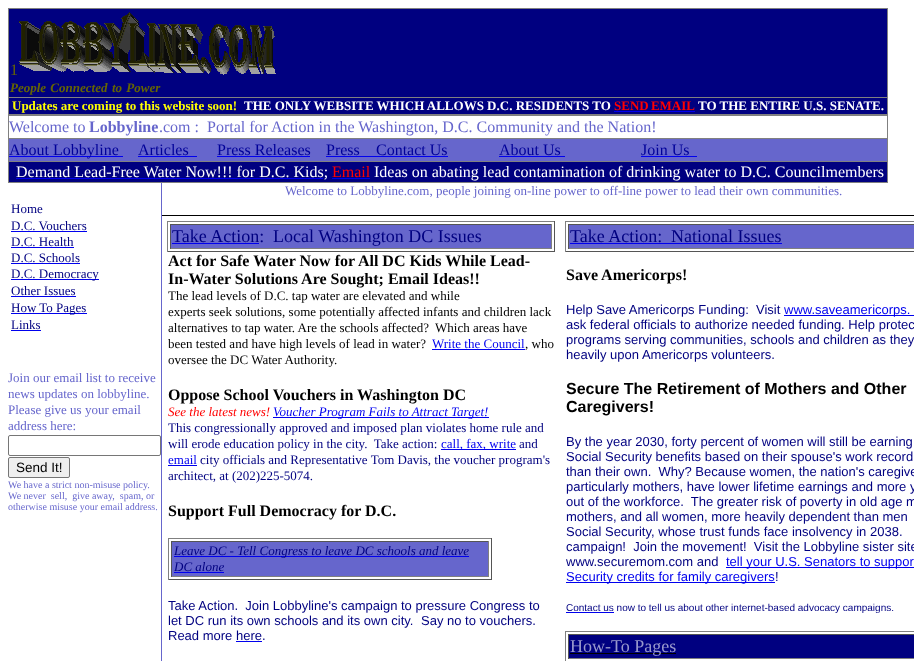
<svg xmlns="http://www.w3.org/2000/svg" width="914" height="661">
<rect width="100%" height="100%" fill="#fff"/>
<rect x="8" y="8" width="880" height="1" fill="#808080"/>
<rect x="887" y="8" width="1" height="107" fill="#808080"/>
<rect x="8" y="114" width="880" height="2" fill="#808080"/>
<rect x="8" y="8" width="1" height="107" fill="#808080"/>
<rect x="9" y="9" width="878" height="88" fill="#000080"/>
<text x="10" y="75" style="font-family:Liberation Serif;font-size:16px;fill:#660">1</text>
<image x="19" y="12" width="257" height="63" href="media/1.png"/>
<text x="10" y="92" word-spacing="1" style="font-family:Liberation Serif;font-size:13px;font-weight:bold;font-style:italic;fill:#660">People Connected</text>
<text x="112" y="92" word-spacing="1" style="font-family:Liberation Serif;font-size:13px;font-weight:bold;font-style:italic;fill:#660">to Power</text>
<rect x="9" y="98" width="878" height="16" fill="#000080"/>
<rect x="8" y="97" width="880" height="1" fill="#808080"/>
<text x="12" y="110" style="font-family:Liberation Serif;font-size:13px;font-weight:bold;fill:#ff0">Updates are coming to this website soon!</text>
<text x="244" y="110" style="font-family:Liberation Serif;font-size:13px;font-weight:bold;fill:#fff">THE ONLY WEBSITE WHICH ALLOWS D.C. RESIDENTS TO</text>
<text x="614" y="110" word-spacing="-1" style="font-family:Liberation Serif;font-size:13px;font-weight:bold;fill:#f00">SEND EMAIL</text>
<rect x="614" y="111" width="81" height="1" fill="#00e"/>
<text x="698" y="110" style="font-family:Liberation Serif;font-size:13px;font-weight:bold;fill:#fff">TO THE ENTIRE U.S. SENATE.</text>
<rect x="887" y="115" width="1" height="68" fill="#808080"/>
<rect x="8" y="182" width="880" height="1" fill="#808080"/>
<rect x="8" y="115" width="1" height="68" fill="#808080"/>
<text x="9" y="132" style="font-family:Liberation Serif;font-size:16px;fill:#66c">Welcome to</text>
<text x="89" y="132" style="font-family:Liberation Serif;font-size:16px;font-weight:bold;fill:#66c">Lobbyline</text>
<text x="159" y="132" style="font-family:Liberation Serif;font-size:16px;fill:#66c">.com :</text>
<text x="207" y="132" style="font-family:Liberation Serif;font-size:16px;fill:#66c">Portal for Action in the Washington, D.C. Community and the Nation!</text>
<rect x="9" y="139" width="878" height="22" fill="#66c"/>
<rect x="8" y="138" width="880" height="1" fill="#808080"/>
<rect x="9" y="156" width="114" height="1" fill="#00e"/>
<text x="9" y="155" style="font-family:Liberation Serif;font-size:16px;fill:#009">About Lobbyline</text>
<text x="138" y="155" style="font-family:Liberation Serif;font-size:16px;fill:#009">Articles</text>
<rect x="138" y="156" width="59" height="1" fill="#00e"/>
<text x="217" y="155" style="font-family:Liberation Serif;font-size:16px;fill:#009">Press Releases</text>
<rect x="217" y="156" width="93" height="1" fill="#00e"/>
<text x="326" y="155" style="font-family:Liberation Serif;font-size:16px;fill:#009">Press</text>
<rect x="326" y="156" width="122" height="1" fill="#00e"/>
<text x="376" y="155" style="font-family:Liberation Serif;font-size:16px;fill:#009">Contact Us</text>
<text x="499" y="155" style="font-family:Liberation Serif;font-size:16px;fill:#009">About Us</text>
<rect x="499" y="156" width="66" height="1" fill="#00e"/>
<text x="641" y="155" style="font-family:Liberation Serif;font-size:16px;fill:#009">Join Us</text>
<rect x="641" y="156" width="56" height="1" fill="#00e"/>
<rect x="9" y="162" width="878" height="20" fill="#000080"/>
<rect x="8" y="161" width="880" height="1" fill="#808080"/>
<rect x="16" y="178" width="307" height="1" fill="#00e"/>
<text x="16" y="177" style="font-family:Liberation Serif;font-size:16px;fill:#fff">Demand Lead-Free Water Now!!! for D.C. Kids;</text>
<text x="332" y="177" style="font-family:Liberation Serif;font-size:16px;fill:#f00">Email</text>
<rect x="332" y="178" width="38" height="1" fill="#00e"/>
<text x="374" y="177" style="font-family:Liberation Serif;font-size:16px;fill:#fff">Ideas on abating lead contamination of drinking water to D.C. Councilmembers</text>
<rect x="161" y="183" width="1" height="478" fill="#66c"/>
<text x="11" y="213" style="font-family:Liberation Serif;font-size:13px;fill:#000080">Home</text>
<text x="11" y="230" style="font-family:Liberation Serif;font-size:13px;fill:#000080">D.C. Vouchers</text>
<rect x="11" y="231" width="76" height="1" fill="#00e"/>
<text x="11" y="246" style="font-family:Liberation Serif;font-size:13px;fill:#000080">D.C. Health</text>
<rect x="11" y="247" width="63" height="1" fill="#00e"/>
<text x="11" y="262" style="font-family:Liberation Serif;font-size:13px;fill:#000080">D.C. Schools</text>
<rect x="11" y="263" width="69" height="1" fill="#00e"/>
<rect x="11" y="279" width="88" height="1" fill="#00e"/>
<text x="11" y="278" style="font-family:Liberation Serif;font-size:13px;fill:#000080">D.C. Democracy</text>
<text x="11" y="295" style="font-family:Liberation Serif;font-size:13px;fill:#000080">Other Issues</text>
<rect x="11" y="296" width="65" height="1" fill="#00e"/>
<rect x="11" y="313" width="76" height="1" fill="#00e"/>
<text x="11" y="312" style="font-family:Liberation Serif;font-size:13px;fill:#000080">How To Pages</text>
<text x="11" y="329" style="font-family:Liberation Serif;font-size:13px;fill:#000080">Links</text>
<rect x="11" y="330" width="30" height="1" fill="#00e"/>
<text x="8" y="382" style="font-family:Liberation Serif;font-size:13px;fill:#66c">Join our email list to receive</text>
<text x="8" y="398" style="font-family:Liberation Serif;font-size:13px;fill:#66c">news updates on lobbyline.</text>
<text x="8" y="414" style="font-family:Liberation Serif;font-size:13px;fill:#66c">Please give us your email</text>
<text x="8" y="430" style="font-family:Liberation Serif;font-size:13px;fill:#66c">address here:</text>
<rect x="8.5" y="435.5" width="152" height="20" rx="1.5" fill="none" stroke="#767676"/>
<rect x="8.5" y="457.5" width="61" height="20" rx="1.5" fill="#efefef" stroke="#767676"/>
<text x="16" y="472" style="font-family:Liberation Sans;font-size:13.5px;fill:#000">Send It!</text>
<text x="8" y="488" style="font-family:Liberation Serif;font-size:10px;fill:#66c">We have a strict non-misuse policy.</text>
<text x="8" y="499" style="font-family:Liberation Serif;font-size:10px;fill:#66c" xml:space="preserve">We never  sell,  give away,  spam, or</text>
<text x="8" y="510" style="font-family:Liberation Serif;font-size:10px;fill:#66c">otherwise misuse your email address.</text>
<text x="285" y="195" style="font-family:Liberation Serif;font-size:13px;fill:#66c">Welcome to Lobbyline.com, people joining on-line power to off-line power to lead their own communities.</text>
<rect x="162" y="215" width="752" height="1" fill="#000"/>
<rect x="167" y="221" width="388" height="1" fill="#808080"/>
<rect x="554" y="221" width="1" height="31" fill="#555"/>
<rect x="167" y="251" width="388" height="1" fill="#555"/>
<rect x="167" y="221" width="1" height="31" fill="#808080"/>
<rect x="171" y="225" width="380" height="23" fill="#66c"/>
<rect x="170" y="224" width="382" height="1" fill="#555"/>
<rect x="551" y="224" width="1" height="25" fill="#808080"/>
<rect x="170" y="248" width="382" height="1" fill="#808080"/>
<rect x="170" y="224" width="1" height="25" fill="#555"/>
<text x="172" y="242" style="font-family:Liberation Serif;font-size:18px;fill:#000080">Take Action:</text>
<rect x="172" y="243" width="87" height="1" fill="#00e"/>
<text x="273" y="242" style="font-family:Liberation Serif;font-size:18px;fill:#000080">Local Washington DC Issues</text>
<text x="168" y="266" style="font-family:Liberation Serif;font-size:16px;font-weight:bold;fill:#000">Act for Safe Water Now for All DC Kids While Lead-</text>
<text x="168" y="284" style="font-family:Liberation Serif;font-size:16px;font-weight:bold;fill:#000">In-Water Solutions Are Sought; Email Ideas!!</text>
<text x="168" y="300" style="font-family:Liberation Serif;font-size:13px;fill:#000">The lead levels of D.C. tap water are elevated and while</text>
<text x="168" y="316" style="font-family:Liberation Serif;font-size:13px;fill:#000">experts seek solutions, some potentially affected infants and children lack</text>
<text x="168" y="332" style="font-family:Liberation Serif;font-size:13px;fill:#000">alternatives to tap water. Are the schools affected?</text>
<text x="435" y="332" style="font-family:Liberation Serif;font-size:13px;fill:#000">Which areas have</text>
<text x="168" y="348" style="font-family:Liberation Serif;font-size:13px;fill:#000">been tested and have high levels of lead in water?</text>
<text x="432" y="348" style="font-family:Liberation Serif;font-size:13px;fill:#00e">Write the Council</text>
<text x="525" y="348" style="font-family:Liberation Serif;font-size:13px;fill:#000">, who</text>
<rect x="432" y="349" width="93" height="1" fill="#00e"/>
<text x="168" y="364" style="font-family:Liberation Serif;font-size:13px;fill:#000">oversee the DC Water Authority.</text>
<text x="168" y="400" style="font-family:Liberation Serif;font-size:16px;font-weight:bold;fill:#000">Oppose School Vouchers in Washington DC</text>
<text x="168" y="416" style="font-family:Liberation Serif;font-size:13px;font-style:italic;fill:#f00">See the latest news!</text>
<rect x="273" y="417" width="216" height="1" fill="#00e"/>
<text x="273" y="416" style="font-family:Liberation Serif;font-size:13px;font-style:italic;fill:#00e">Voucher Program Fails to Attract Target!</text>
<text x="168" y="432" style="font-family:Liberation Serif;font-size:13px;fill:#000080">This congressionally approved and imposed plan violates home rule and</text>
<text x="168" y="448" style="font-family:Liberation Serif;font-size:13px;fill:#000080" xml:space="preserve">will erode education policy in the city.  Take action:</text>
<rect x="441" y="449" width="75" height="1" fill="#00e"/>
<text x="441" y="448" style="font-family:Liberation Serif;font-size:13px;fill:#00e">call, fax, write</text>
<text x="519" y="448" style="font-family:Liberation Serif;font-size:13px;fill:#000080">and</text>
<text x="168" y="464" style="font-family:Liberation Serif;font-size:13px;fill:#00e">email</text>
<rect x="168" y="465" width="29" height="1" fill="#00e"/>
<text x="200" y="464" style="font-family:Liberation Serif;font-size:13px;fill:#000080">city officials and Representative Tom Davis, the voucher program's</text>
<text x="168" y="480" style="font-family:Liberation Serif;font-size:13px;fill:#000080">architect, at (202)225-5074.</text>
<text x="168" y="516" style="font-family:Liberation Serif;font-size:16px;font-weight:bold;fill:#000">Support Full Democracy for D.C.</text>
<rect x="168" y="538" width="324" height="1" fill="#808080"/>
<rect x="491" y="538" width="1" height="42" fill="#555"/>
<rect x="168" y="579" width="324" height="1" fill="#555"/>
<rect x="168" y="538" width="1" height="42" fill="#808080"/>
<rect x="172" y="542" width="316" height="34" fill="#66c"/>
<rect x="171" y="541" width="318" height="1" fill="#555"/>
<rect x="488" y="541" width="1" height="36" fill="#808080"/>
<rect x="171" y="576" width="318" height="1" fill="#808080"/>
<rect x="171" y="541" width="1" height="36" fill="#555"/>
<rect x="174" y="556" width="295" height="1" fill="#00e"/>
<text x="174" y="555" style="font-family:Liberation Serif;font-size:13px;font-style:italic;fill:#000080">Leave DC - Tell Congress to leave DC schools and leave</text>
<text x="174" y="571" style="font-family:Liberation Serif;font-size:13px;font-style:italic;fill:#000080">DC alone</text>
<rect x="174" y="572" width="50" height="1" fill="#00e"/>
<text x="168" y="610" style="font-family:Liberation Sans;font-size:13px;fill:#000080" xml:space="preserve">Take Action.  Join Lobbyline's campaign to pressure Congress to</text>
<text x="168" y="625" style="font-family:Liberation Sans;font-size:13px;fill:#000080">let DC run its own schools and its own city.</text>
<text x="421" y="625" style="font-family:Liberation Sans;font-size:13px;fill:#000080">Say no to vouchers.</text>
<text x="168" y="640" style="font-family:Liberation Sans;font-size:13px;fill:#000080">Read more here.</text>
<rect x="236" y="641" width="26" height="1" fill="#00e"/>
<rect x="565" y="221" width="349" height="1" fill="#808080"/>
<rect x="565" y="251" width="349" height="1" fill="#555"/>
<rect x="565" y="221" width="1" height="31" fill="#808080"/>
<rect x="569" y="225" width="345" height="23" fill="#66c"/>
<rect x="568" y="224" width="346" height="1" fill="#555"/>
<rect x="568" y="248" width="346" height="1" fill="#808080"/>
<rect x="568" y="224" width="1" height="25" fill="#555"/>
<text x="570" y="242" style="font-family:Liberation Serif;font-size:18px;fill:#000080">Take Action:</text>
<rect x="570" y="243" width="212" height="1" fill="#00e"/>
<text x="671" y="242" style="font-family:Liberation Serif;font-size:18px;fill:#000080">National Issues</text>
<text x="566" y="280" style="font-family:Liberation Serif;font-size:16px;font-weight:bold;fill:#000">Save Americorps!</text>
<text x="566" y="314" style="font-family:Liberation Sans;font-size:13px;fill:#000080" xml:space="preserve">Help Save Americorps Funding:  Visit</text>
<rect x="784" y="315" width="130" height="1" fill="#00e"/>
<text x="784" y="314" style="font-family:Liberation Sans;font-size:13px;fill:#00e">www.saveamericorps.</text>
<text x="566" y="329" style="font-family:Liberation Sans;font-size:13px;fill:#000080">ask federal officials to authorize needed funding. Help protec</text>
<text x="566" y="344" style="font-family:Liberation Sans;font-size:13px;fill:#000080">programs serving communities, schools and children as they</text>
<text x="566" y="359" style="font-family:Liberation Sans;font-size:13px;fill:#000080">heavily upon Americorps volunteers.</text>
<text x="566" y="394" style="font-family:Liberation Sans;font-size:16px;font-weight:bold;fill:#000">Secure The Retirement of Mothers and Other</text>
<text x="566" y="412" style="font-family:Liberation Sans;font-size:16px;font-weight:bold;fill:#000">Caregivers!</text>
<text x="566" y="446" style="font-family:Liberation Sans;font-size:13px;fill:#000080">By the year 2030, forty percent of women will still be earning</text>
<text x="566" y="461" style="font-family:Liberation Sans;font-size:13px;fill:#000080">Social Security benefits based on their spouse's work record</text>
<text x="566" y="476" style="font-family:Liberation Sans;font-size:13px;fill:#000080" xml:space="preserve">than their own.  Why? Because women, the nation's caregive</text>
<text x="566" y="491" style="font-family:Liberation Sans;font-size:13px;fill:#000080">particularly mothers, have lower lifetime earnings and more y</text>
<text x="566" y="506" style="font-family:Liberation Sans;font-size:13px;fill:#000080" xml:space="preserve">out of the workforce.  The greater risk of poverty in old age m</text>
<text x="566" y="521" style="font-family:Liberation Sans;font-size:13px;fill:#000080">mothers, and all women, more heavily dependent than men</text>
<text x="566" y="536" style="font-family:Liberation Sans;font-size:13px;fill:#000080">Social Security, whose trust funds face insolvency in 2038.</text>
<text x="566" y="551" style="font-family:Liberation Sans;font-size:13px;fill:#000080" xml:space="preserve">campaign!  Join the movement!  Visit the Lobbyline sister site</text>
<text x="566" y="566" style="font-family:Liberation Sans;font-size:13px;fill:#000080">www.securemom.com and</text>
<rect x="726" y="567" width="188" height="1" fill="#00e"/>
<text x="726" y="566" style="font-family:Liberation Sans;font-size:13px;fill:#00e">tell your U.S. Senators to suppor</text>
<rect x="566" y="582" width="209" height="1" fill="#00e"/>
<text x="566" y="581" style="font-family:Liberation Sans;font-size:13px;fill:#00e">Security credits for family caregivers</text>
<text x="775" y="581" style="font-family:Liberation Sans;font-size:13px;fill:#000080">!</text>
<rect x="566" y="612" width="48" height="1" fill="#00e"/>
<text x="566" y="611" style="font-family:Liberation Sans;font-size:10px;fill:#000080">Contact us now to tell us about other internet-based advocacy campaigns.</text>
<rect x="565" y="631" width="349" height="1" fill="#808080"/>
<rect x="565" y="631" width="1" height="30" fill="#808080"/>
<rect x="569" y="635" width="345" height="23" fill="#000080"/>
<rect x="568" y="634" width="346" height="1" fill="#555"/>
<rect x="568" y="658" width="346" height="1" fill="#808080"/>
<rect x="568" y="634" width="1" height="25" fill="#555"/>
<rect x="570" y="653" width="106" height="1" fill="#000"/>
<text x="570" y="652" style="font-family:Liberation Serif;font-size:18px;fill:#99c">How-To Pages</text>
</svg>
